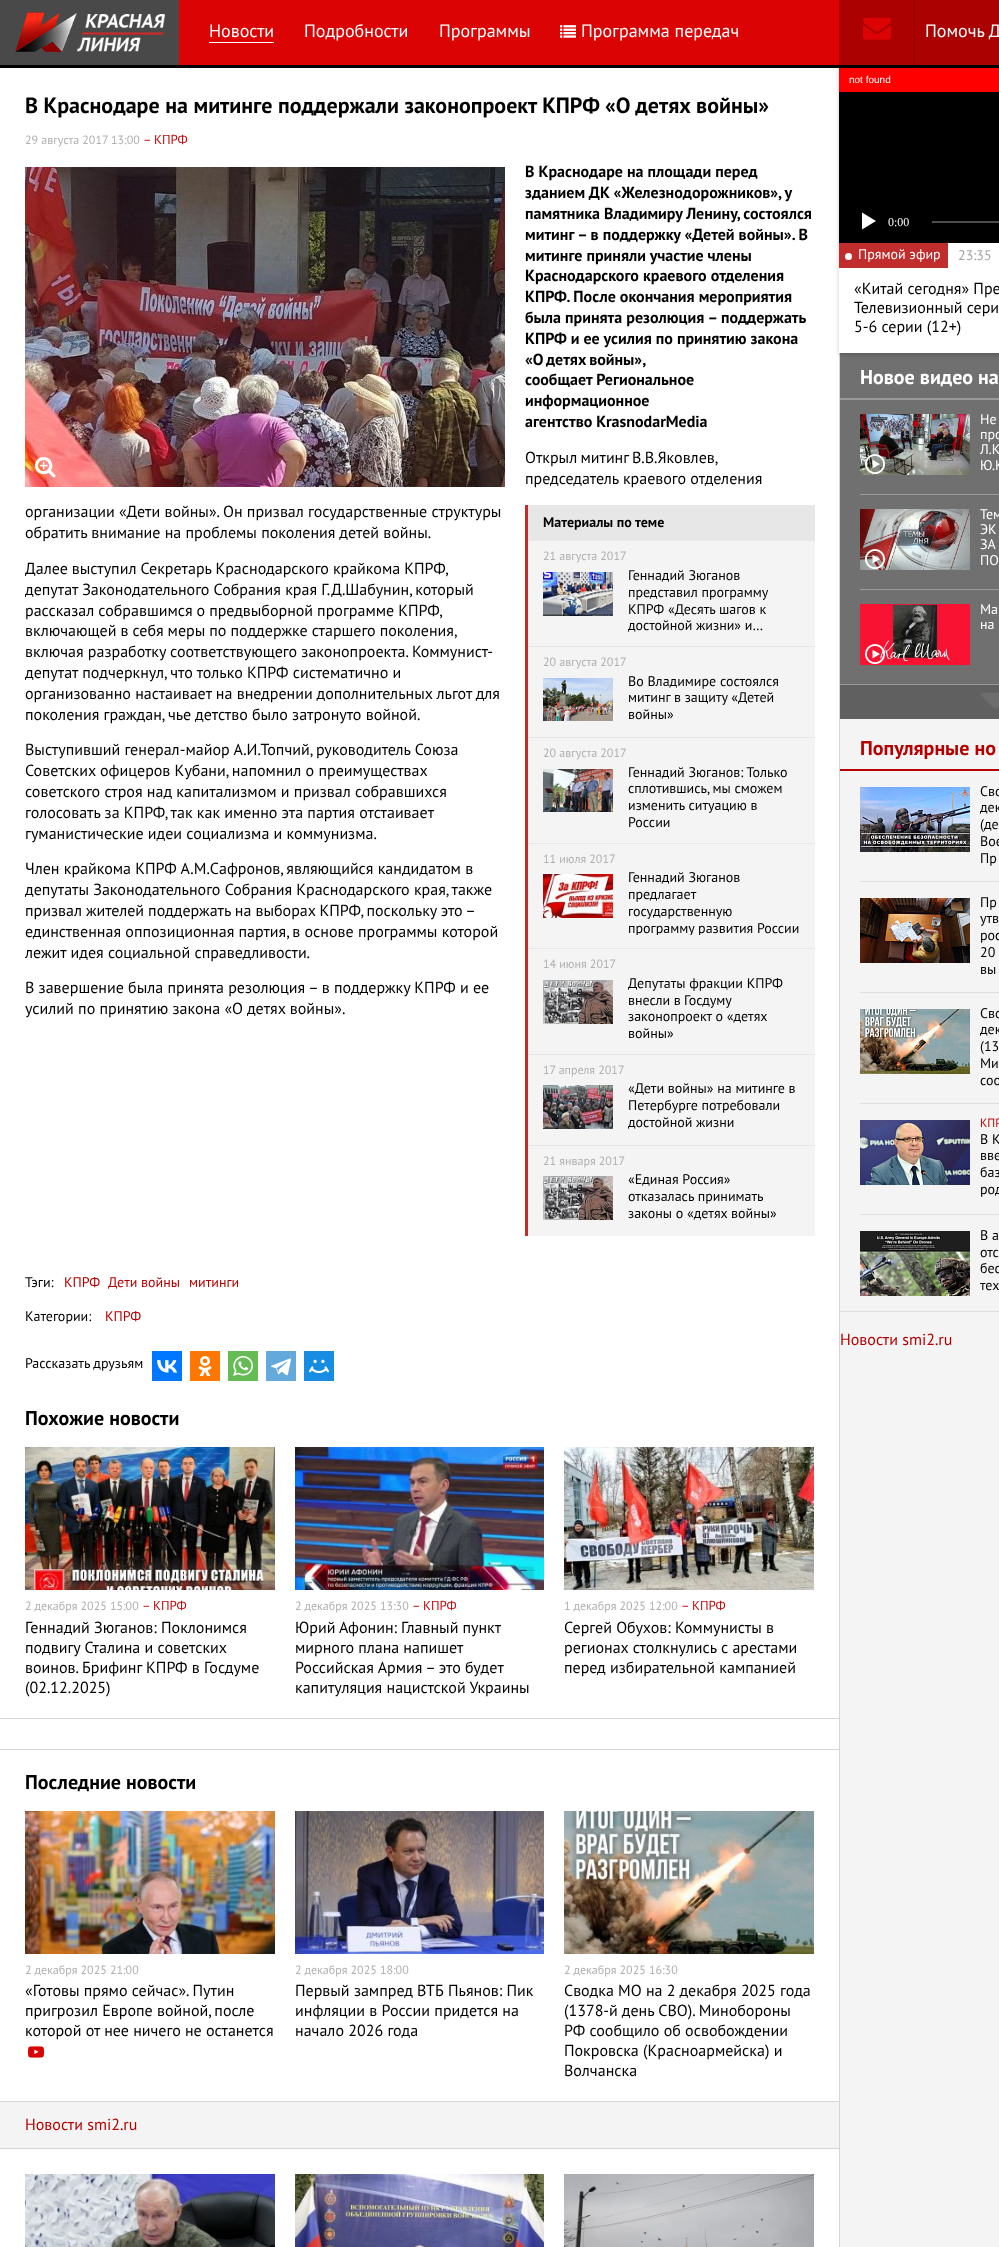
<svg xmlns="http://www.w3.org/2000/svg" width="999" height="2247">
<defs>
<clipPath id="clip1"><rect x="628" y="870" width="172" height="65"/></clipPath>
</defs>
<rect width="100%" height="100%" fill="#fff"/>
<rect y="65" width="999" height="3" fill="#000"/>
<rect x="840" y="353" width="159" height="331" fill="#707070"/>
<rect y="1718" width="840" height="1" fill="#d6d5d5"/>
<rect y="1749" width="840" height="1" fill="#d6d5d5"/>
<rect y="2101" width="840" height="1" fill="#d6d5d5"/>
<rect y="2148" width="840" height="1" fill="#d6d5d5"/>
<rect x="839" y="353" width="1" height="1894" fill="#d6d5d5"/>
<rect x="839" y="70" width="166" height="285" fill="#00000033" filter="blur(2px)"/>
<rect x="179" width="660" height="65" fill="#db0303"/>
<rect width="179" height="65" fill="#494949"/>
<image x="15" y="12" width="150" height="40" href="media/1.png"/>
<text x="209" y="37" style="font-family:PT Sans;font-size:18px;fill:#fff">Новости</text>
<rect x="209" y="42" width="65" height="1" fill="#fff"/>
<text x="304" y="37" style="font-family:PT Sans;font-size:18px;fill:#fff">Подробности</text>
<text x="439" y="37" style="font-family:PT Sans;font-size:18px;fill:#fff">Программы</text>
<image x="560" y="25" width="16" height="13" href="media/2.png"/>
<text x="581" y="37" style="font-family:PT Sans;font-size:18px;fill:#fff">Программа передач</text>
<rect x="839" width="160" height="65" fill="#ab0101"/>
<image x="863" y="17" width="28" height="23" href="media/3.png"/>
<rect x="914" width="1" height="65" fill="#940000"/>
<text x="925" y="37" style="font-family:PT Sans;font-size:18px;fill:#fff">Помочь Д</text>
<text x="25" y="113" style="font-family:PT Sans;font-size:22px;font-weight:bold;fill:#000">В Краснодаре на митинге поддержали законопроект КПРФ «О детях войны»</text>
<text x="25" y="144" style="font-family:PT Sans;font-size:12px;fill:#b0b0b0">29 августа 2017 13:00</text>
<text x="143" y="144" style="font-family:PT Sans;font-size:13px;fill:#c30707">– КПРФ</text>
<text x="525" y="177" style="font-family:PT Sans;font-size:16px;font-weight:bold;fill:#000">В Краснодаре на площади перед</text>
<text x="525" y="198" style="font-family:PT Sans;font-size:16px;font-weight:bold;fill:#000">зданием ДК «Железнодорожников», у</text>
<text x="525" y="219" style="font-family:PT Sans;font-size:16px;font-weight:bold;fill:#000">памятника Владимиру Ленину, состоялся</text>
<text x="525" y="240" style="font-family:PT Sans;font-size:16px;font-weight:bold;fill:#000">митинг – в поддержку «Детей войны». В</text>
<text x="525" y="261" style="font-family:PT Sans;font-size:16px;font-weight:bold;fill:#000">митинге приняли участие члены</text>
<text x="525" y="281" style="font-family:PT Sans;font-size:16px;font-weight:bold;fill:#000">Краснодарского краевого отделения</text>
<text x="525" y="302" style="font-family:PT Sans;font-size:16px;font-weight:bold;fill:#000">КПРФ. После окончания мероприятия</text>
<text x="525" y="323" style="font-family:PT Sans;font-size:16px;font-weight:bold;fill:#000">была принята резолюция – поддержать</text>
<text x="525" y="344" style="font-family:PT Sans;font-size:16px;font-weight:bold;fill:#000">КПРФ и ее усилия по принятию закона</text>
<text x="525" y="365" word-spacing="-1" style="font-family:PT Sans;font-size:16px;font-weight:bold;fill:#000">«О детях войны»,</text>
<text x="525" y="385" style="font-family:PT Sans;font-size:16px;font-weight:bold;fill:#000">сообщает Региональное</text>
<text x="525" y="406" style="font-family:PT Sans;font-size:16px;font-weight:bold;fill:#000">информационное</text>
<text x="525" y="427" style="font-family:PT Sans;font-size:16px;font-weight:bold;fill:#000">агентство KrasnodarMedia</text>
<text x="525" y="463" word-spacing="-1" style="font-family:PT Sans;font-size:16px;fill:#000">Открыл митинг В.В.Яковлев,</text>
<text x="525" y="484" style="font-family:PT Sans;font-size:16px;fill:#000">председатель краевого отделения</text>
<text x="25" y="517" style="font-family:PT Sans;font-size:16px;fill:#000">организации «Дети войны». Он призвал государственные структуры</text>
<text x="25" y="538" style="font-family:PT Sans;font-size:16px;fill:#000">обратить внимание на проблемы поколения детей войны.</text>
<rect x="528" y="541" width="287" height="695" fill="#f4f4f4"/>
<rect x="525" y="505" width="3" height="731" fill="#c12d2d"/>
<rect x="528" y="505" width="287" height="36" fill="#e7e7e7"/>
<text x="543" y="527" style="font-family:PT Sans;font-size:14px;font-weight:bold;fill:#000">Материалы по теме</text>
<text x="543" y="560" style="font-family:PT Sans;font-size:12px;fill:#b0b0b0">21 августа 2017</text>
<image x="543" y="572" width="70" height="44" href="media/4.png"/>
<text x="628" y="580" style="font-family:PT Sans;font-size:14px;fill:#000">Геннадий Зюганов</text>
<text x="628" y="597" style="font-family:PT Sans;font-size:14px;fill:#000">представил программу</text>
<text x="628" y="614" style="font-family:PT Sans;font-size:14px;fill:#000">КПРФ «Десять шагов к</text>
<text x="628" y="630" style="font-family:PT Sans;font-size:14px;fill:#000">достойной жизни» и…</text>
<rect x="528" y="646" width="287" height="1" fill="#e7e7e7"/>
<text x="543" y="666" style="font-family:PT Sans;font-size:12px;fill:#b0b0b0">20 августа 2017</text>
<image x="543" y="678" width="70" height="43" href="media/5.png"/>
<text x="628" y="686" style="font-family:PT Sans;font-size:14px;fill:#000">Во Владимире состоялся</text>
<text x="628" y="702" style="font-family:PT Sans;font-size:14px;fill:#000">митинг в защиту «Детей</text>
<text x="628" y="719" style="font-family:PT Sans;font-size:14px;fill:#000">войны»</text>
<rect x="528" y="737" width="287" height="1" fill="#e7e7e7"/>
<text x="543" y="757" style="font-family:PT Sans;font-size:12px;fill:#b0b0b0">20 августа 2017</text>
<image x="543" y="769" width="70" height="43" href="media/6.png"/>
<text x="628" y="777" style="font-family:PT Sans;font-size:14px;fill:#000">Геннадий Зюганов: Только</text>
<text x="628" y="793" style="font-family:PT Sans;font-size:14px;fill:#000">сплотившись, мы сможем</text>
<text x="628" y="810" style="font-family:PT Sans;font-size:14px;fill:#000">изменить ситуацию в</text>
<text x="628" y="827" style="font-family:PT Sans;font-size:14px;fill:#000">России</text>
<rect x="528" y="843" width="287" height="1" fill="#e7e7e7"/>
<text x="543" y="863" style="font-family:PT Sans;font-size:12px;fill:#b0b0b0">11 июля 2017</text>
<image x="543" y="874" width="70" height="44" href="media/7.png"/>
<text x="628" y="882" style="font-family:PT Sans;font-size:14px;fill:#000">Геннадий Зюганов</text>
<text x="628" y="899" style="font-family:PT Sans;font-size:14px;fill:#000">предлагает</text>
<text x="628" y="916" style="font-family:PT Sans;font-size:14px;fill:#000">государственную</text>
<g clip-path="url(#clip1)">
<text x="628" y="933" style="font-family:PT Sans;font-size:14px;fill:#000">программу развития России</text>
</g>
<rect x="528" y="948" width="287" height="1" fill="#e7e7e7"/>
<text x="543" y="968" style="font-family:PT Sans;font-size:12px;fill:#b0b0b0">14 июня 2017</text>
<image x="543" y="980" width="70" height="44" href="media/8.png"/>
<text x="628" y="988" style="font-family:PT Sans;font-size:14px;fill:#000">Депутаты фракции КПРФ</text>
<text x="628" y="1005" word-spacing="-0.25" style="font-family:PT Sans;font-size:14px;fill:#000">внесли в Госдуму</text>
<text x="628" y="1021" style="font-family:PT Sans;font-size:14px;fill:#000">законопроект о «детях</text>
<text x="628" y="1038" style="font-family:PT Sans;font-size:14px;fill:#000">войны»</text>
<rect x="528" y="1054" width="287" height="1" fill="#e7e7e7"/>
<text x="543" y="1074" style="font-family:PT Sans;font-size:12px;fill:#b0b0b0">17 апреля 2017</text>
<image x="543" y="1085" width="70" height="44" href="media/9.png"/>
<text x="628" y="1093" style="font-family:PT Sans;font-size:14px;fill:#000">«Дети войны» на митинге в</text>
<text x="628" y="1110" style="font-family:PT Sans;font-size:14px;fill:#000">Петербурге потребовали</text>
<text x="628" y="1127" style="font-family:PT Sans;font-size:14px;fill:#000">достойной жизни</text>
<rect x="528" y="1145" width="287" height="1" fill="#e7e7e7"/>
<text x="543" y="1165" style="font-family:PT Sans;font-size:12px;fill:#b0b0b0">21 января 2017</text>
<image x="543" y="1176" width="70" height="44" href="media/10.png"/>
<text x="628" y="1184" style="font-family:PT Sans;font-size:14px;fill:#000">«Единая Россия»</text>
<text x="628" y="1201" style="font-family:PT Sans;font-size:14px;fill:#000">отказалась принимать</text>
<text x="628" y="1218" style="font-family:PT Sans;font-size:14px;fill:#000">законы о «детях войны»</text>
<text x="25" y="574" word-spacing="-0.25" style="font-family:PT Sans;font-size:16px;fill:#000">Далее выступил Секретарь Краснодарского крайкома КПРФ,</text>
<text x="25" y="595" style="font-family:PT Sans;font-size:16px;fill:#000">депутат Законодательного Собрания края Г.Д.Шабунин, который</text>
<text x="25" y="616" word-spacing="-0.25" style="font-family:PT Sans;font-size:16px;fill:#000">рассказал собравшимся о предвыборной программе КПРФ,</text>
<text x="25" y="636" word-spacing="-0.25" style="font-family:PT Sans;font-size:16px;fill:#000">включающей в себя меры по поддержке старшего поколения,</text>
<text x="25" y="657" style="font-family:PT Sans;font-size:16px;fill:#000">включая разработку соответствующего законопроекта. Коммунист-</text>
<text x="25" y="678" style="font-family:PT Sans;font-size:16px;fill:#000">депутат подчеркнул, что только КПРФ систематично и</text>
<text x="25" y="699" style="font-family:PT Sans;font-size:16px;fill:#000">организованно настаивает на внедрении дополнительных льгот для</text>
<text x="25" y="720" style="font-family:PT Sans;font-size:16px;fill:#000">поколения граждан, чье детство было затронуто войной.</text>
<text x="25" y="755" style="font-family:PT Sans;font-size:16px;fill:#000">Выступивший генерал-майор А.И.Топчий, руководитель Союза</text>
<text x="25" y="776" style="font-family:PT Sans;font-size:16px;fill:#000">Советских офицеров Кубани, напомнил о преимуществах</text>
<text x="25" y="797" style="font-family:PT Sans;font-size:16px;fill:#000">советского строя над капитализмом и призвал собравшихся</text>
<text x="25" y="818" style="font-family:PT Sans;font-size:16px;fill:#000">голосовать за КПРФ, так как именно эта партия отстаивает</text>
<text x="25" y="839" style="font-family:PT Sans;font-size:16px;fill:#000">гуманистические идеи социализма и коммунизма.</text>
<text x="25" y="874" style="font-family:PT Sans;font-size:16px;fill:#000">Член крайкома КПРФ А.М.Сафронов, являющийся кандидатом в</text>
<text x="25" y="895" style="font-family:PT Sans;font-size:16px;fill:#000">депутаты Законодательного Собрания Краснодарского края, также</text>
<text x="25" y="916" word-spacing="-0.25" style="font-family:PT Sans;font-size:16px;fill:#000">призвал жителей поддержать на выборах КПРФ, поскольку это –</text>
<text x="25" y="937" style="font-family:PT Sans;font-size:16px;fill:#000">единственная оппозиционная партия, в основе программы которой</text>
<text x="25" y="958" style="font-family:PT Sans;font-size:16px;fill:#000">лежит идея социальной справедливости.</text>
<text x="25" y="993" style="font-family:PT Sans;font-size:16px;fill:#000">В завершение была принята резолюция – в поддержку КПРФ и ее</text>
<text x="25" y="1014" style="font-family:PT Sans;font-size:16px;fill:#000">усилий по принятию закона «О детях войны».</text>
<image x="25" y="167" width="480" height="320" href="media/11.png"/>
<image x="35" y="457" width="21" height="21" href="media/12.png"/>
<text x="25" y="1287" style="font-family:PT Sans;font-size:14px;fill:#000">Тэги:</text>
<text x="64" y="1287" style="font-family:PT Sans;font-size:14px;fill:#b60000">КПРФ</text>
<text x="108" y="1287" style="font-family:PT Sans;font-size:14px;fill:#b60000">Дети войны</text>
<text x="189" y="1287" style="font-family:PT Sans;font-size:14px;fill:#b60000">митинги</text>
<text x="25" y="1321" style="font-family:PT Sans;font-size:14px;fill:#000">Категории:</text>
<text x="105" y="1321" style="font-family:PT Sans;font-size:14px;fill:#b60000">КПРФ</text>
<text x="25" y="1368" style="font-family:PT Sans;font-size:14px;fill:#000">Рассказать друзьям</text>
<rect x="152" y="1351" width="30" height="30" fill="#07f"/>
<image x="157" y="1360" width="20" height="13" href="media/13.png"/>
<rect x="190" y="1351" width="30" height="30" fill="#f70"/>
<image x="198" y="1356" width="14" height="20" href="media/14.png"/>
<rect x="228" y="1351" width="30" height="30" fill="#65bc54"/>
<image x="233" y="1356" width="20" height="20" href="media/15.png"/>
<rect x="266" y="1351" width="30" height="30" fill="#64a9dc"/>
<image x="271" y="1358" width="20" height="18" href="media/16.png"/>
<rect x="304" y="1351" width="30" height="30" fill="#168de2"/>
<image x="309" y="1359" width="20" height="15" href="media/17.png"/>
<text x="25" y="1425" style="font-family:PT Sans;font-size:20px;font-weight:bold;fill:#000">Похожие новости</text>
<image x="25" y="1447" width="250" height="143" href="media/18.png"/>
<text x="25" y="1610" style="font-family:PT Sans;font-size:12px;fill:#b0b0b0">2 декабря 2025 15:00</text>
<text x="142" y="1610" style="font-family:PT Sans;font-size:13px;fill:#c30707">– КПРФ</text>
<text x="25" y="1633" style="font-family:PT Sans;font-size:16px;fill:#000">Геннадий Зюганов: Поклонимся</text>
<text x="25" y="1653" style="font-family:PT Sans;font-size:16px;fill:#000">подвигу Сталина и советских</text>
<text x="25" y="1673" style="font-family:PT Sans;font-size:16px;fill:#000">воинов. Брифинг КПРФ в Госдуме</text>
<text x="25" y="1693" style="font-family:PT Sans;font-size:16px;fill:#000">(02.12.2025)</text>
<image x="295" y="1447" width="249" height="143" href="media/19.png"/>
<text x="295" y="1610" style="font-family:PT Sans;font-size:12px;fill:#b0b0b0">2 декабря 2025 13:30</text>
<text x="412" y="1610" style="font-family:PT Sans;font-size:13px;fill:#c30707">– КПРФ</text>
<text x="295" y="1633" word-spacing="-0.25" style="font-family:PT Sans;font-size:16px;fill:#000">Юрий Афонин: Главный пункт</text>
<text x="295" y="1653" word-spacing="-0.25" style="font-family:PT Sans;font-size:16px;fill:#000">мирного плана напишет</text>
<text x="295" y="1673" style="font-family:PT Sans;font-size:16px;fill:#000">Российская Армия – это будет</text>
<text x="295" y="1693" style="font-family:PT Sans;font-size:16px;fill:#000">капитуляция нацистской Украины</text>
<image x="564" y="1447" width="250" height="143" href="media/20.png"/>
<text x="564" y="1610" style="font-family:PT Sans;font-size:12px;fill:#b0b0b0">1 декабря 2025 12:00</text>
<text x="681" y="1610" style="font-family:PT Sans;font-size:13px;fill:#c30707">– КПРФ</text>
<text x="564" y="1633" style="font-family:PT Sans;font-size:16px;fill:#000">Сергей Обухов: Коммунисты в</text>
<text x="564" y="1653" style="font-family:PT Sans;font-size:16px;fill:#000">регионах столкнулись с арестами</text>
<text x="564" y="1673" style="font-family:PT Sans;font-size:16px;fill:#000">перед избирательной кампанией</text>
<text x="25" y="1789" style="font-family:PT Sans;font-size:20px;font-weight:bold;fill:#000">Последние новости</text>
<image x="25" y="1811" width="250" height="143" href="media/21.png"/>
<text x="25" y="1974" style="font-family:PT Sans;font-size:12px;fill:#b0b0b0">2 декабря 2025 21:00</text>
<text x="25" y="1996" style="font-family:PT Sans;font-size:16px;fill:#000">«Готовы прямо сейчас». Путин</text>
<text x="25" y="2016" style="font-family:PT Sans;font-size:16px;fill:#000">пригрозил Европе войной, после</text>
<text x="25" y="2036" style="font-family:PT Sans;font-size:16px;fill:#000">которой от нее ничего не останется</text>
<image x="28" y="2046" width="16" height="12" href="media/22.png"/>
<image x="295" y="1811" width="249" height="143" href="media/23.png"/>
<text x="295" y="1974" style="font-family:PT Sans;font-size:12px;fill:#b0b0b0">2 декабря 2025 18:00</text>
<text x="295" y="1996" style="font-family:PT Sans;font-size:16px;fill:#000">Первый зампред ВТБ Пьянов: Пик</text>
<text x="295" y="2016" style="font-family:PT Sans;font-size:16px;fill:#000">инфляции в России придется на</text>
<text x="295" y="2036" style="font-family:PT Sans;font-size:16px;fill:#000">начало 2026 года</text>
<image x="564" y="1811" width="250" height="143" href="media/24.png"/>
<text x="564" y="1974" style="font-family:PT Sans;font-size:12px;fill:#b0b0b0">2 декабря 2025 16:30</text>
<text x="564" y="1996" style="font-family:PT Sans;font-size:16px;fill:#000">Сводка МО на 2 декабря 2025 года</text>
<text x="564" y="2016" style="font-family:PT Sans;font-size:16px;fill:#000">(1378-й день СВО). Минобороны</text>
<text x="564" y="2036" style="font-family:PT Sans;font-size:16px;fill:#000">РФ сообщило об освобождении</text>
<text x="564" y="2056" style="font-family:PT Sans;font-size:16px;fill:#000">Покровска (Красноармейска) и</text>
<text x="564" y="2076" style="font-family:PT Sans;font-size:16px;fill:#000">Волчанска</text>
<rect y="2102" width="839" height="46" fill="#f4f4f4"/>
<text x="25" y="2130" style="font-family:PT Sans;font-size:16px;fill:#b60000">Новости smi2.ru</text>
<image x="25" y="2174" width="250" height="73" href="media/25.png"/>
<image x="295" y="2174" width="249" height="73" href="media/26.png"/>
<image x="564" y="2174" width="250" height="73" href="media/27.png"/>
<rect x="839" y="243" width="160" height="110" fill="#fff"/>
<rect x="839" y="92" width="160" height="151" fill="#000"/>
<rect x="839" y="68" width="160" height="24" fill="#f00"/>
<text x="849" y="83" style="font-family:Liberation Sans;font-size:10px;fill:#fff">not found</text>
<path d="M862 212.5v17l14-8.5z" fill="#fff"/>
<text x="888" y="226" style="font-family:Liberation Serif;font-size:12px;fill:#fff">0:00</text>
<rect x="932" y="221" width="67" height="2" fill="#4d4d4d"/>
<rect x="839" y="243" width="109" height="25" fill="#c12c2c"/>
<circle cx="848.5" cy="256.5" r="3.5" fill="#fff"/>
<text x="858" y="259" style="font-family:PT Sans;font-size:14px;fill:#fff">Прямой эфир</text>
<text x="958" y="260" style="font-family:PT Sans;font-size:14px;fill:#a3a3a3">23:35</text>
<text x="854" y="294" style="font-family:PT Sans;font-size:16px;fill:#000">«Китай сегодня» Пре</text>
<text x="854" y="313" style="font-family:PT Sans;font-size:16px;fill:#000">Телевизионный сери</text>
<text x="854" y="332" style="font-family:PT Sans;font-size:16px;fill:#000">5-6 серии (12+)</text>
<rect x="840" y="398" width="159" height="2" fill="#9b9999"/>
<text x="860" y="384" style="font-family:PT Sans;font-size:20px;font-weight:bold;fill:#fff">Новое видео на</text>
<rect x="860" y="494" width="139" height="1" fill="#9b9999"/>
<image x="860" y="414" width="110" height="61" href="media/28.png"/>
<image x="865" y="454" width="20" height="21" href="media/29.png"/>
<text x="980" y="424" style="font-family:PT Sans;font-size:14px;fill:#fff">Не</text>
<text x="980" y="439" word-spacing="-1" style="font-family:PT Sans;font-size:14px;fill:#fff">про</text>
<text x="980" y="454" style="font-family:PT Sans;font-size:14px;fill:#fff">Л.К</text>
<text x="980" y="470" style="font-family:PT Sans;font-size:14px;fill:#fff">Ю.К</text>
<rect x="860" y="589" width="139" height="1" fill="#9b9999"/>
<image x="860" y="509" width="110" height="61" href="media/30.png"/>
<image x="865" y="549" width="20" height="20" href="media/31.png"/>
<text x="980" y="519" style="font-family:PT Sans;font-size:14px;fill:#fff">Тем</text>
<text x="980" y="534" style="font-family:PT Sans;font-size:14px;fill:#fff">ЭК</text>
<text x="980" y="549" style="font-family:PT Sans;font-size:14px;fill:#fff">ЗА</text>
<text x="980" y="565" style="font-family:PT Sans;font-size:14px;fill:#fff">ПО</text>
<image x="860" y="604" width="110" height="61" href="media/32.png"/>
<image x="865" y="644" width="20" height="21" href="media/33.png"/>
<text x="980" y="614" style="font-family:PT Sans;font-size:14px;fill:#fff">Ма</text>
<text x="980" y="629" style="font-family:PT Sans;font-size:14px;fill:#fff">на</text>
<rect x="840" y="685" width="159" height="34" fill="#606060"/>
<rect x="840" y="684" width="159" height="1" fill="#9b9999"/>
<image x="981" y="693" width="18" height="16" href="media/34.png"/>
<rect x="840" y="719" width="159" height="1528" fill="#f4f4f4"/>
<rect x="840" y="1311" width="159" height="1" fill="#dfdfdf"/>
<rect x="840" y="769" width="159" height="2" fill="#b60000"/>
<text x="860" y="755" style="font-family:PT Sans;font-size:20px;font-weight:bold;fill:#b60000">Популярные но</text>
<image x="860" y="787" width="110" height="65" href="media/35.png"/>
<text x="980" y="796" style="font-family:PT Sans;font-size:14px;fill:#000">Сво</text>
<text x="980" y="812" style="font-family:PT Sans;font-size:14px;fill:#000">дек</text>
<text x="980" y="829" word-spacing="-1" style="font-family:PT Sans;font-size:14px;fill:#000">(де</text>
<text x="980" y="846" style="font-family:PT Sans;font-size:14px;fill:#000">Вое</text>
<text x="980" y="863" style="font-family:PT Sans;font-size:14px;fill:#000">Пр</text>
<rect x="860" y="881" width="139" height="1" fill="#dfdfdf"/>
<image x="860" y="898" width="110" height="65" href="media/36.png"/>
<text x="980" y="907" style="font-family:PT Sans;font-size:14px;fill:#000">Пр</text>
<text x="980" y="923" style="font-family:PT Sans;font-size:14px;fill:#000">утв</text>
<text x="980" y="940" style="font-family:PT Sans;font-size:14px;fill:#000">рос</text>
<text x="980" y="957" style="font-family:PT Sans;font-size:14px;fill:#000">20</text>
<text x="980" y="974" style="font-family:PT Sans;font-size:14px;fill:#000">вы</text>
<rect x="860" y="992" width="139" height="1" fill="#dfdfdf"/>
<image x="860" y="1009" width="110" height="65" href="media/37.png"/>
<text x="980" y="1018" style="font-family:PT Sans;font-size:14px;fill:#000">Сво</text>
<text x="980" y="1034" style="font-family:PT Sans;font-size:14px;fill:#000">дек</text>
<text x="980" y="1051" word-spacing="-1" style="font-family:PT Sans;font-size:14px;fill:#000">(13</text>
<text x="980" y="1068" style="font-family:PT Sans;font-size:14px;fill:#000">Ми</text>
<text x="980" y="1085" style="font-family:PT Sans;font-size:14px;fill:#000">соо</text>
<rect x="860" y="1103" width="139" height="1" fill="#dfdfdf"/>
<image x="860" y="1120" width="110" height="65" href="media/38.png"/>
<text x="980" y="1127" style="font-family:PT Sans;font-size:12px;fill:#c30707">КПР</text>
<text x="980" y="1144" style="font-family:PT Sans;font-size:14px;fill:#000">В К</text>
<text x="980" y="1160" style="font-family:PT Sans;font-size:14px;fill:#000">вве</text>
<text x="980" y="1177" style="font-family:PT Sans;font-size:14px;fill:#000">баз</text>
<text x="980" y="1194" style="font-family:PT Sans;font-size:14px;fill:#000">род</text>
<rect x="860" y="1214" width="139" height="1" fill="#dfdfdf"/>
<image x="860" y="1231" width="110" height="65" href="media/39.png"/>
<text x="980" y="1240" style="font-family:PT Sans;font-size:14px;fill:#000">В а</text>
<text x="980" y="1257" style="font-family:PT Sans;font-size:14px;fill:#000">отс</text>
<text x="980" y="1273" style="font-family:PT Sans;font-size:14px;fill:#000">бес</text>
<text x="980" y="1290" style="font-family:PT Sans;font-size:14px;fill:#000">тех</text>
<text x="840" y="1345" style="font-family:PT Sans;font-size:16px;fill:#b60000">Новости smi2.ru</text>
</svg>
